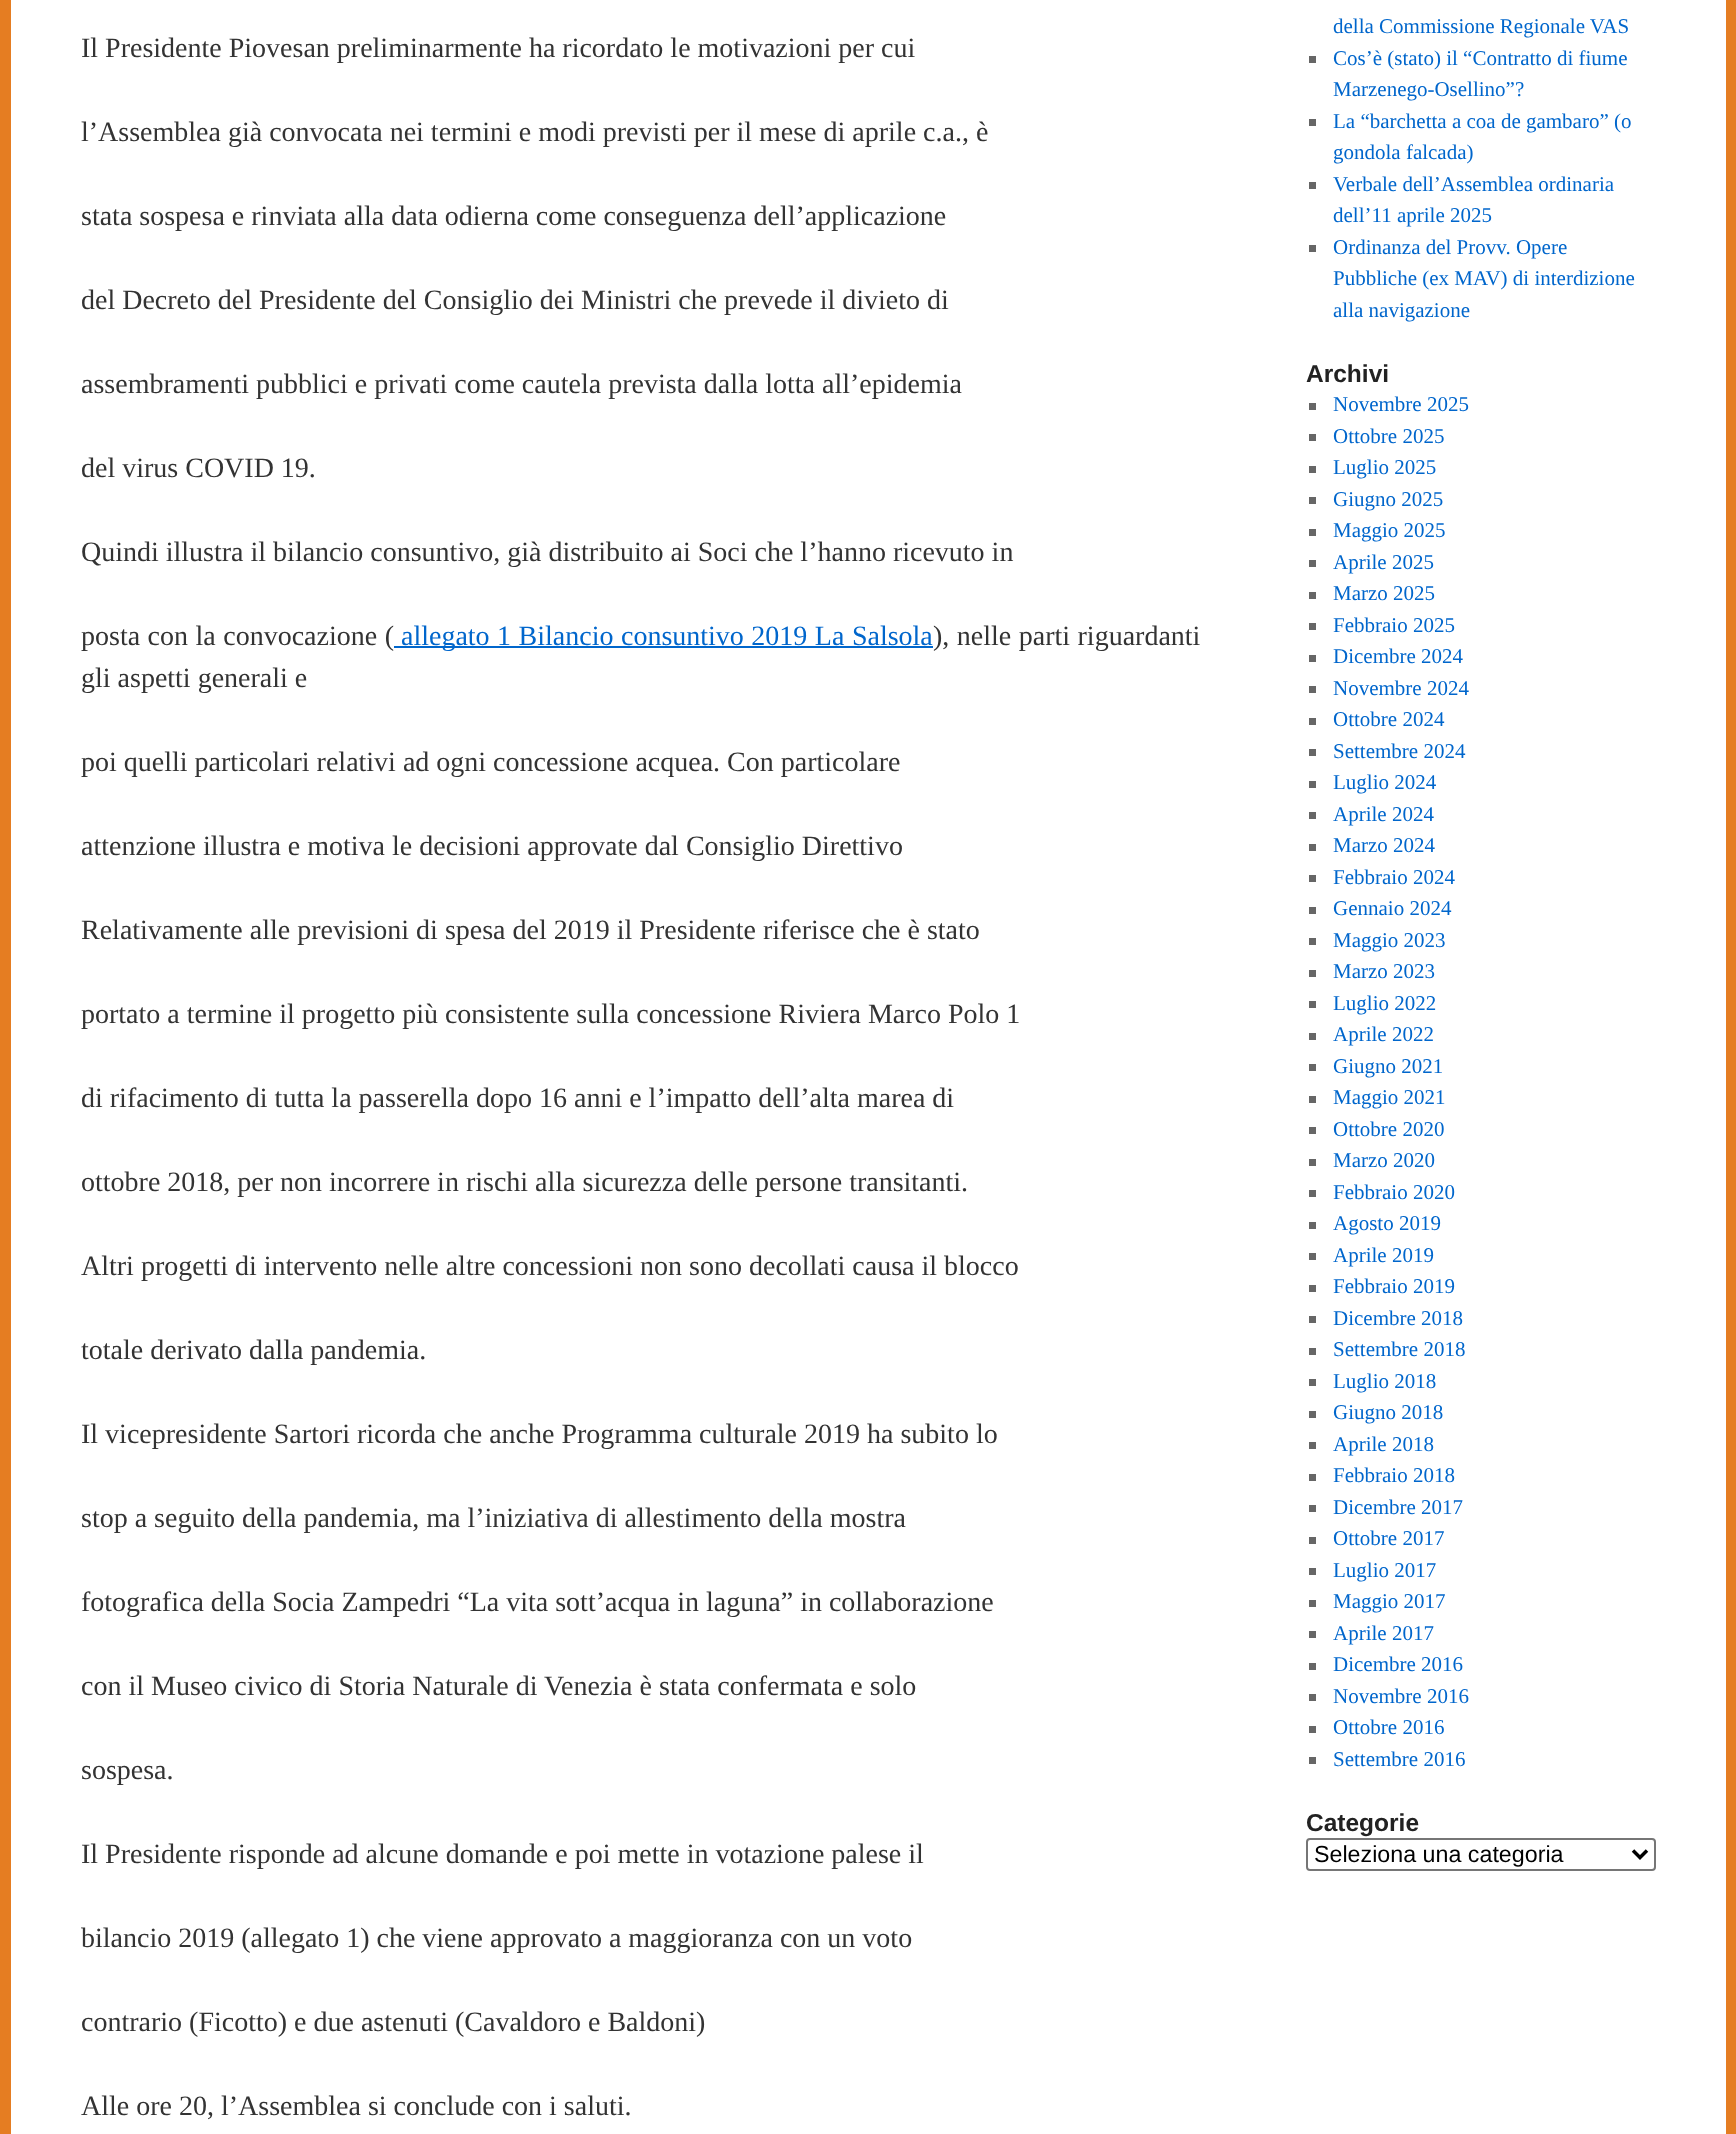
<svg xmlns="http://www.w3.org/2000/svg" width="1736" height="2134">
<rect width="100%" height="100%" fill="#e57d22"/>
<rect x="11" width="1715" height="2134" fill="#fff"/>
<text x="81" y="57" style="font-family:Liberation Serif;font-size:28px;fill:#333">Il Presidente Piovesan preliminarmente ha ricordato le motivazioni per cui</text>
<text x="81" y="141" style="font-family:Liberation Serif;font-size:28px;fill:#333">l’Assemblea già convocata nei termini e modi previsti per il mese di aprile c.a., è</text>
<text x="81" y="225" style="font-family:Liberation Serif;font-size:28px;fill:#333">stata sospesa e rinviata alla data odierna come conseguenza dell’applicazione</text>
<text x="81" y="309" style="font-family:Liberation Serif;font-size:28px;fill:#333">del Decreto del Presidente del Consiglio dei Ministri che prevede il divieto di</text>
<text x="81" y="393" style="font-family:Liberation Serif;font-size:28px;fill:#333">assembramenti pubblici e privati come cautela prevista dalla lotta all’epidemia</text>
<text x="81" y="477" style="font-family:Liberation Serif;font-size:28px;fill:#333">del virus COVID 19.</text>
<text x="81" y="561" style="font-family:Liberation Serif;font-size:28px;fill:#333">Quindi illustra il bilancio consuntivo, già distribuito ai Soci che l’hanno ricevuto in</text>
<text x="81" y="645" word-spacing="0.5" style="font-family:Liberation Serif;font-size:28px;fill:#333">posta con la convocazione (</text>
<rect x="394" y="646" width="539" height="2" fill="#06c"/>
<text x="401" y="645" word-spacing="0.5" style="font-family:Liberation Serif;font-size:28px;fill:#06c">allegato 1 Bilancio consuntivo 2019 La Salsola</text>
<text x="933" y="645" word-spacing="0.5" style="font-family:Liberation Serif;font-size:28px;fill:#333">), nelle parti riguardanti</text>
<text x="81" y="687" style="font-family:Liberation Serif;font-size:28px;fill:#333">gli aspetti generali e</text>
<text x="81" y="771" style="font-family:Liberation Serif;font-size:28px;fill:#333">poi quelli particolari relativi ad ogni concessione acquea. Con particolare</text>
<text x="81" y="855" style="font-family:Liberation Serif;font-size:28px;fill:#333">attenzione illustra e motiva le decisioni approvate dal Consiglio Direttivo</text>
<text x="81" y="939" style="font-family:Liberation Serif;font-size:28px;fill:#333">Relativamente alle previsioni di spesa del 2019 il Presidente riferisce che è stato</text>
<text x="81" y="1023" style="font-family:Liberation Serif;font-size:28px;fill:#333">portato a termine il progetto più consistente sulla concessione Riviera Marco Polo 1</text>
<text x="81" y="1107" style="font-family:Liberation Serif;font-size:28px;fill:#333">di rifacimento di tutta la passerella dopo 16 anni e l’impatto dell’alta marea di</text>
<text x="81" y="1191" style="font-family:Liberation Serif;font-size:28px;fill:#333">ottobre 2018, per non incorrere in rischi alla sicurezza delle persone transitanti.</text>
<text x="81" y="1275" style="font-family:Liberation Serif;font-size:28px;fill:#333">Altri progetti di intervento nelle altre concessioni non sono decollati causa il blocco</text>
<text x="81" y="1359" style="font-family:Liberation Serif;font-size:28px;fill:#333">totale derivato dalla pandemia.</text>
<text x="81" y="1443" style="font-family:Liberation Serif;font-size:28px;fill:#333">Il vicepresidente Sartori ricorda che anche Programma culturale 2019 ha subito lo</text>
<text x="81" y="1527" style="font-family:Liberation Serif;font-size:28px;fill:#333">stop a seguito della pandemia, ma l’iniziativa di allestimento della mostra</text>
<text x="81" y="1611" style="font-family:Liberation Serif;font-size:28px;fill:#333">fotografica della Socia Zampedri “La vita sott’acqua in laguna” in collaborazione</text>
<text x="81" y="1695" style="font-family:Liberation Serif;font-size:28px;fill:#333">con il Museo civico di Storia Naturale di Venezia è stata confermata e solo</text>
<text x="81" y="1779" style="font-family:Liberation Serif;font-size:28px;fill:#333">sospesa.</text>
<text x="81" y="1863" style="font-family:Liberation Serif;font-size:28px;fill:#333">Il Presidente risponde ad alcune domande e poi mette in votazione palese il</text>
<text x="81" y="1947" style="font-family:Liberation Serif;font-size:28px;fill:#333">bilancio 2019 (allegato 1) che viene approvato a maggioranza con un voto</text>
<text x="81" y="2031" style="font-family:Liberation Serif;font-size:28px;fill:#333">contrario (Ficotto) e due astenuti (Cavaldoro e Baldoni)</text>
<text x="81" y="2115" style="font-family:Liberation Serif;font-size:28px;fill:#333">Alle ore 20, l’Assemblea si conclude con i saluti.</text>
<text x="1333" y="33" style="font-family:Liberation Serif;font-size:21px;fill:#06c">della Commissione Regionale VAS</text>
<rect x="1309" y="56" width="7" height="7" fill="#666"/>
<text x="1333" y="65" style="font-family:Liberation Serif;font-size:21px;fill:#06c">Cos’è (stato) il “Contratto di fiume</text>
<text x="1333" y="96" style="font-family:Liberation Serif;font-size:21px;fill:#06c">Marzenego-Osellino”?</text>
<rect x="1309" y="119" width="7" height="7" fill="#666"/>
<text x="1333" y="128" style="font-family:Liberation Serif;font-size:21px;fill:#06c">La “barchetta a coa de gambaro” (o</text>
<text x="1333" y="159" style="font-family:Liberation Serif;font-size:21px;fill:#06c">gondola falcada)</text>
<rect x="1309" y="182" width="7" height="7" fill="#666"/>
<text x="1333" y="191" style="font-family:Liberation Serif;font-size:21px;fill:#06c">Verbale dell’Assemblea ordinaria</text>
<text x="1333" y="222" style="font-family:Liberation Serif;font-size:21px;fill:#06c">dell’11 aprile 2025</text>
<rect x="1309" y="245" width="7" height="7" fill="#666"/>
<text x="1333" y="254" style="font-family:Liberation Serif;font-size:21px;fill:#06c">Ordinanza del Provv. Opere</text>
<text x="1333" y="285" style="font-family:Liberation Serif;font-size:21px;fill:#06c">Pubbliche (ex MAV) di interdizione</text>
<text x="1333" y="317" style="font-family:Liberation Serif;font-size:21px;fill:#06c">alla navigazione</text>
<text x="1306" y="382" style="font-family:Liberation Sans;font-size:24.5px;font-weight:bold;fill:#222">Archivi</text>
<rect x="1309" y="403" width="7" height="7" fill="#666"/>
<text x="1333" y="411" style="font-family:Liberation Serif;font-size:21px;fill:#06c">Novembre 2025</text>
<rect x="1309" y="434" width="7" height="7" fill="#666"/>
<text x="1333" y="443" style="font-family:Liberation Serif;font-size:21px;fill:#06c">Ottobre 2025</text>
<rect x="1309" y="466" width="7" height="7" fill="#666"/>
<text x="1333" y="474" style="font-family:Liberation Serif;font-size:21px;fill:#06c">Luglio 2025</text>
<rect x="1309" y="497" width="7" height="7" fill="#666"/>
<text x="1333" y="506" style="font-family:Liberation Serif;font-size:21px;fill:#06c">Giugno 2025</text>
<rect x="1309" y="529" width="7" height="7" fill="#666"/>
<text x="1333" y="537" style="font-family:Liberation Serif;font-size:21px;fill:#06c">Maggio 2025</text>
<rect x="1309" y="560" width="7" height="7" fill="#666"/>
<text x="1333" y="569" style="font-family:Liberation Serif;font-size:21px;fill:#06c">Aprile 2025</text>
<rect x="1309" y="592" width="7" height="7" fill="#666"/>
<text x="1333" y="600" style="font-family:Liberation Serif;font-size:21px;fill:#06c">Marzo 2025</text>
<rect x="1309" y="623" width="7" height="7" fill="#666"/>
<text x="1333" y="632" style="font-family:Liberation Serif;font-size:21px;fill:#06c">Febbraio 2025</text>
<rect x="1309" y="655" width="7" height="7" fill="#666"/>
<text x="1333" y="663" style="font-family:Liberation Serif;font-size:21px;fill:#06c">Dicembre 2024</text>
<rect x="1309" y="686" width="7" height="7" fill="#666"/>
<text x="1333" y="695" style="font-family:Liberation Serif;font-size:21px;fill:#06c">Novembre 2024</text>
<rect x="1309" y="718" width="7" height="7" fill="#666"/>
<text x="1333" y="726" style="font-family:Liberation Serif;font-size:21px;fill:#06c">Ottobre 2024</text>
<rect x="1309" y="749" width="7" height="7" fill="#666"/>
<text x="1333" y="758" style="font-family:Liberation Serif;font-size:21px;fill:#06c">Settembre 2024</text>
<rect x="1309" y="781" width="7" height="7" fill="#666"/>
<text x="1333" y="789" style="font-family:Liberation Serif;font-size:21px;fill:#06c">Luglio 2024</text>
<rect x="1309" y="812" width="7" height="7" fill="#666"/>
<text x="1333" y="821" style="font-family:Liberation Serif;font-size:21px;fill:#06c">Aprile 2024</text>
<rect x="1309" y="844" width="7" height="7" fill="#666"/>
<text x="1333" y="852" style="font-family:Liberation Serif;font-size:21px;fill:#06c">Marzo 2024</text>
<rect x="1309" y="875" width="7" height="7" fill="#666"/>
<text x="1333" y="884" style="font-family:Liberation Serif;font-size:21px;fill:#06c">Febbraio 2024</text>
<rect x="1309" y="907" width="7" height="7" fill="#666"/>
<text x="1333" y="915" style="font-family:Liberation Serif;font-size:21px;fill:#06c">Gennaio 2024</text>
<rect x="1309" y="938" width="7" height="7" fill="#666"/>
<text x="1333" y="947" style="font-family:Liberation Serif;font-size:21px;fill:#06c">Maggio 2023</text>
<rect x="1309" y="970" width="7" height="7" fill="#666"/>
<text x="1333" y="978" style="font-family:Liberation Serif;font-size:21px;fill:#06c">Marzo 2023</text>
<rect x="1309" y="1001" width="7" height="7" fill="#666"/>
<text x="1333" y="1010" style="font-family:Liberation Serif;font-size:21px;fill:#06c">Luglio 2022</text>
<rect x="1309" y="1033" width="7" height="7" fill="#666"/>
<text x="1333" y="1041" style="font-family:Liberation Serif;font-size:21px;fill:#06c">Aprile 2022</text>
<rect x="1309" y="1064" width="7" height="7" fill="#666"/>
<text x="1333" y="1073" style="font-family:Liberation Serif;font-size:21px;fill:#06c">Giugno 2021</text>
<rect x="1309" y="1096" width="7" height="7" fill="#666"/>
<text x="1333" y="1104" style="font-family:Liberation Serif;font-size:21px;fill:#06c">Maggio 2021</text>
<rect x="1309" y="1127" width="7" height="7" fill="#666"/>
<text x="1333" y="1136" style="font-family:Liberation Serif;font-size:21px;fill:#06c">Ottobre 2020</text>
<rect x="1309" y="1159" width="7" height="7" fill="#666"/>
<text x="1333" y="1167" style="font-family:Liberation Serif;font-size:21px;fill:#06c">Marzo 2020</text>
<rect x="1309" y="1190" width="7" height="7" fill="#666"/>
<text x="1333" y="1199" style="font-family:Liberation Serif;font-size:21px;fill:#06c">Febbraio 2020</text>
<rect x="1309" y="1222" width="7" height="7" fill="#666"/>
<text x="1333" y="1230" style="font-family:Liberation Serif;font-size:21px;fill:#06c">Agosto 2019</text>
<rect x="1309" y="1253" width="7" height="7" fill="#666"/>
<text x="1333" y="1262" style="font-family:Liberation Serif;font-size:21px;fill:#06c">Aprile 2019</text>
<rect x="1309" y="1285" width="7" height="7" fill="#666"/>
<text x="1333" y="1293" style="font-family:Liberation Serif;font-size:21px;fill:#06c">Febbraio 2019</text>
<rect x="1309" y="1316" width="7" height="7" fill="#666"/>
<text x="1333" y="1325" style="font-family:Liberation Serif;font-size:21px;fill:#06c">Dicembre 2018</text>
<rect x="1309" y="1348" width="7" height="7" fill="#666"/>
<text x="1333" y="1356" style="font-family:Liberation Serif;font-size:21px;fill:#06c">Settembre 2018</text>
<rect x="1309" y="1379" width="7" height="7" fill="#666"/>
<text x="1333" y="1388" style="font-family:Liberation Serif;font-size:21px;fill:#06c">Luglio 2018</text>
<rect x="1309" y="1411" width="7" height="7" fill="#666"/>
<text x="1333" y="1419" style="font-family:Liberation Serif;font-size:21px;fill:#06c">Giugno 2018</text>
<rect x="1309" y="1442" width="7" height="7" fill="#666"/>
<text x="1333" y="1451" style="font-family:Liberation Serif;font-size:21px;fill:#06c">Aprile 2018</text>
<rect x="1309" y="1474" width="7" height="7" fill="#666"/>
<text x="1333" y="1482" style="font-family:Liberation Serif;font-size:21px;fill:#06c">Febbraio 2018</text>
<rect x="1309" y="1505" width="7" height="7" fill="#666"/>
<text x="1333" y="1514" style="font-family:Liberation Serif;font-size:21px;fill:#06c">Dicembre 2017</text>
<rect x="1309" y="1537" width="7" height="7" fill="#666"/>
<text x="1333" y="1545" style="font-family:Liberation Serif;font-size:21px;fill:#06c">Ottobre 2017</text>
<rect x="1309" y="1568" width="7" height="7" fill="#666"/>
<text x="1333" y="1577" style="font-family:Liberation Serif;font-size:21px;fill:#06c">Luglio 2017</text>
<rect x="1309" y="1600" width="7" height="7" fill="#666"/>
<text x="1333" y="1608" style="font-family:Liberation Serif;font-size:21px;fill:#06c">Maggio 2017</text>
<rect x="1309" y="1631" width="7" height="7" fill="#666"/>
<text x="1333" y="1640" style="font-family:Liberation Serif;font-size:21px;fill:#06c">Aprile 2017</text>
<rect x="1309" y="1663" width="7" height="7" fill="#666"/>
<text x="1333" y="1671" style="font-family:Liberation Serif;font-size:21px;fill:#06c">Dicembre 2016</text>
<rect x="1309" y="1694" width="7" height="7" fill="#666"/>
<text x="1333" y="1703" style="font-family:Liberation Serif;font-size:21px;fill:#06c">Novembre 2016</text>
<rect x="1309" y="1726" width="7" height="7" fill="#666"/>
<text x="1333" y="1734" style="font-family:Liberation Serif;font-size:21px;fill:#06c">Ottobre 2016</text>
<rect x="1309" y="1757" width="7" height="7" fill="#666"/>
<text x="1333" y="1766" style="font-family:Liberation Serif;font-size:21px;fill:#06c">Settembre 2016</text>
<text x="1306" y="1831" style="font-family:Liberation Sans;font-size:24.5px;font-weight:bold;fill:#222">Categorie</text>
<rect x="1307" y="1839" width="348" height="31" rx="3" fill="none" stroke="#767676" stroke-width="2"/>
<path d="M1633 1850.5l7 7l7-7" fill="none" stroke="#000" stroke-width="3.5"/>
<text x="1314" y="1862" style="font-family:Liberation Sans;font-size:23.25px;fill:#000">Seleziona una categoria</text>
</svg>
